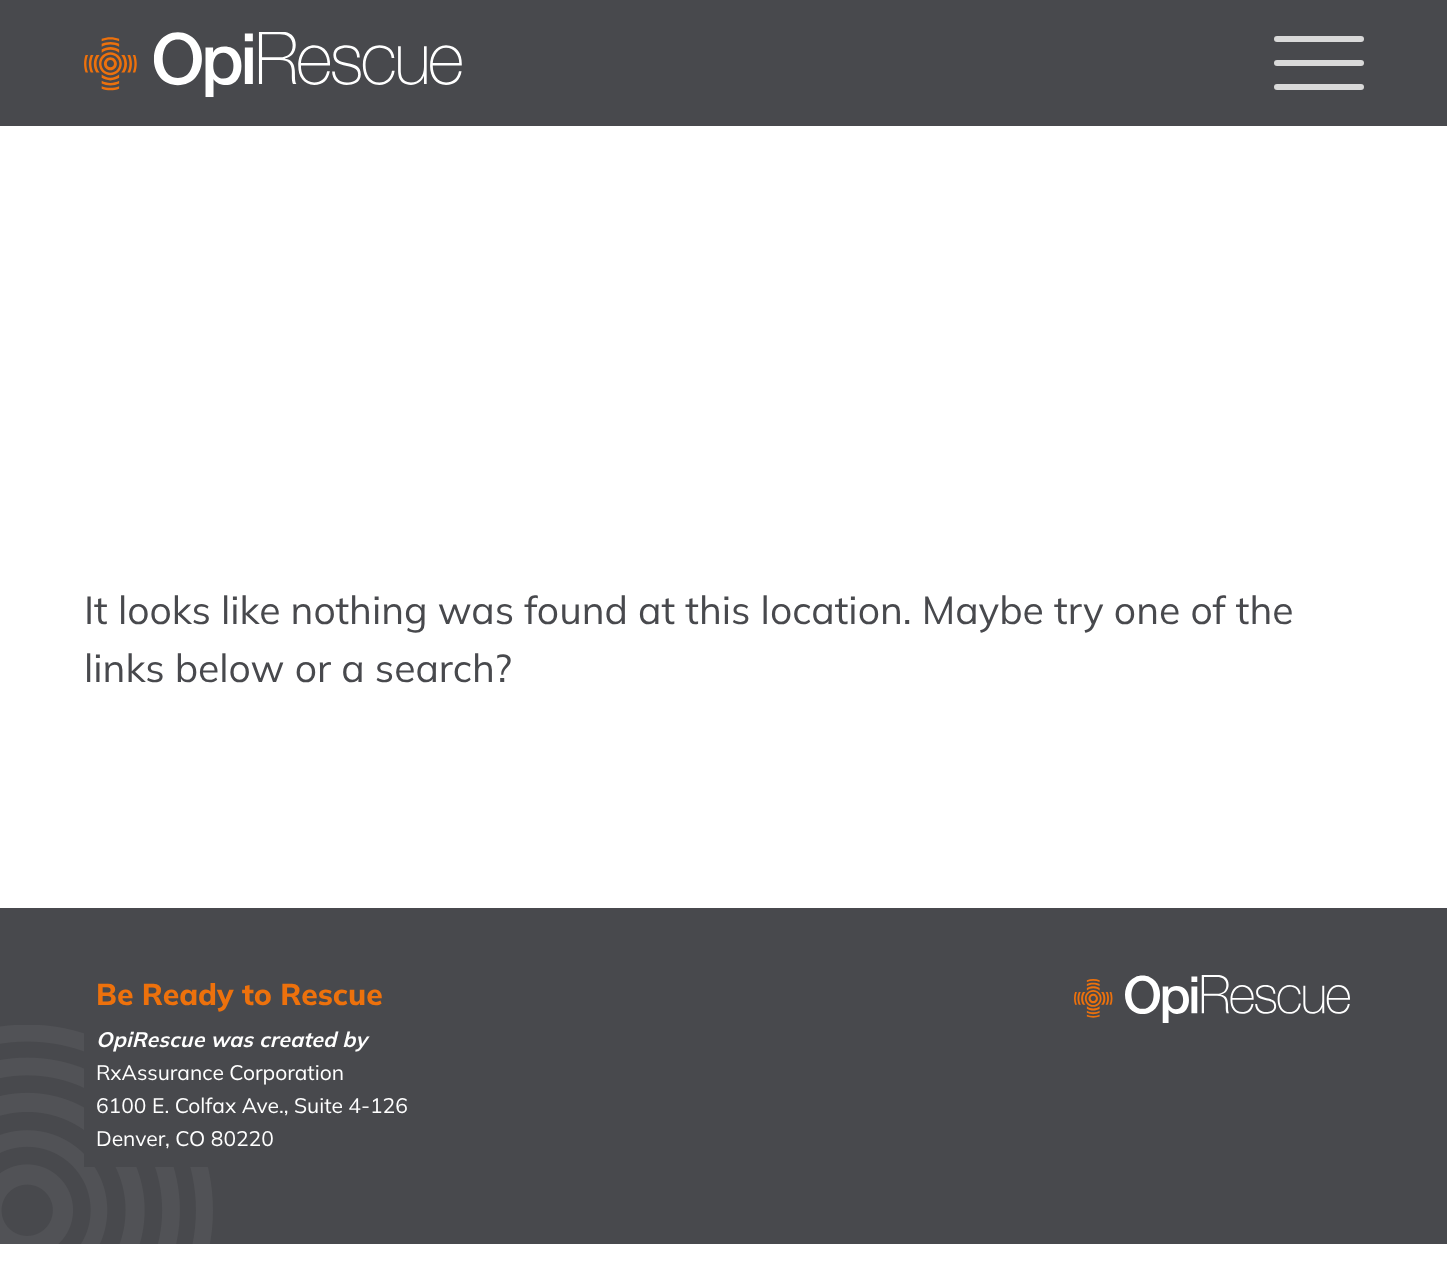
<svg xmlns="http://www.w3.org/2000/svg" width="1447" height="1273">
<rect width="100%" height="100%" fill="#fff"/>
<rect width="1447" height="126" fill="#48494d"/>
<image x="84" y="32" width="378" height="66" href="media/1.png"/>
<rect x="1274" y="36" width="90" height="6" rx="3" fill="#d9d9d9"/>
<rect x="1274" y="60" width="90" height="6" rx="3" fill="#d9d9d9"/>
<rect x="1274" y="84" width="90" height="6" rx="3" fill="#d9d9d9"/>
<text x="84" y="624" style="font-family:Mulish;font-size:39px;fill:#48494d">It looks like nothing was found at this location. Maybe try one of the</text>
<text x="84" y="682" style="font-family:Mulish;font-size:39px;fill:#48494d">links below or a search?</text>
<rect y="908" width="1447" height="336" fill="#48494d"/>
<image x="0" y="1025" width="213" height="219" href="media/2.png"/>
<rect x="84" y="1033" width="124" height="134" fill="#48494d"/>
<text x="96" y="1005" style="font-family:Mulish;font-size:30px;font-weight:800;fill:#ed710c">Be Ready to Rescue</text>
<text x="96" y="1047" style="font-family:Mulish;font-size:21px;font-weight:bold;font-style:italic;letter-spacing:0.25px;fill:#fff">OpiRescue was created by</text>
<text x="96" y="1080" style="font-family:Mulish;font-size:21px;fill:#fff">RxAssurance Corporation</text>
<text x="96" y="1113" style="font-family:Mulish;font-size:21px;fill:#fff">6100 E. Colfax Ave., Suite 4-126</text>
<text x="96" y="1146" style="font-family:Mulish;font-size:21px;fill:#fff">Denver, CO 80220</text>
<image x="1074" y="975" width="276" height="48" href="media/3.png"/>
</svg>
